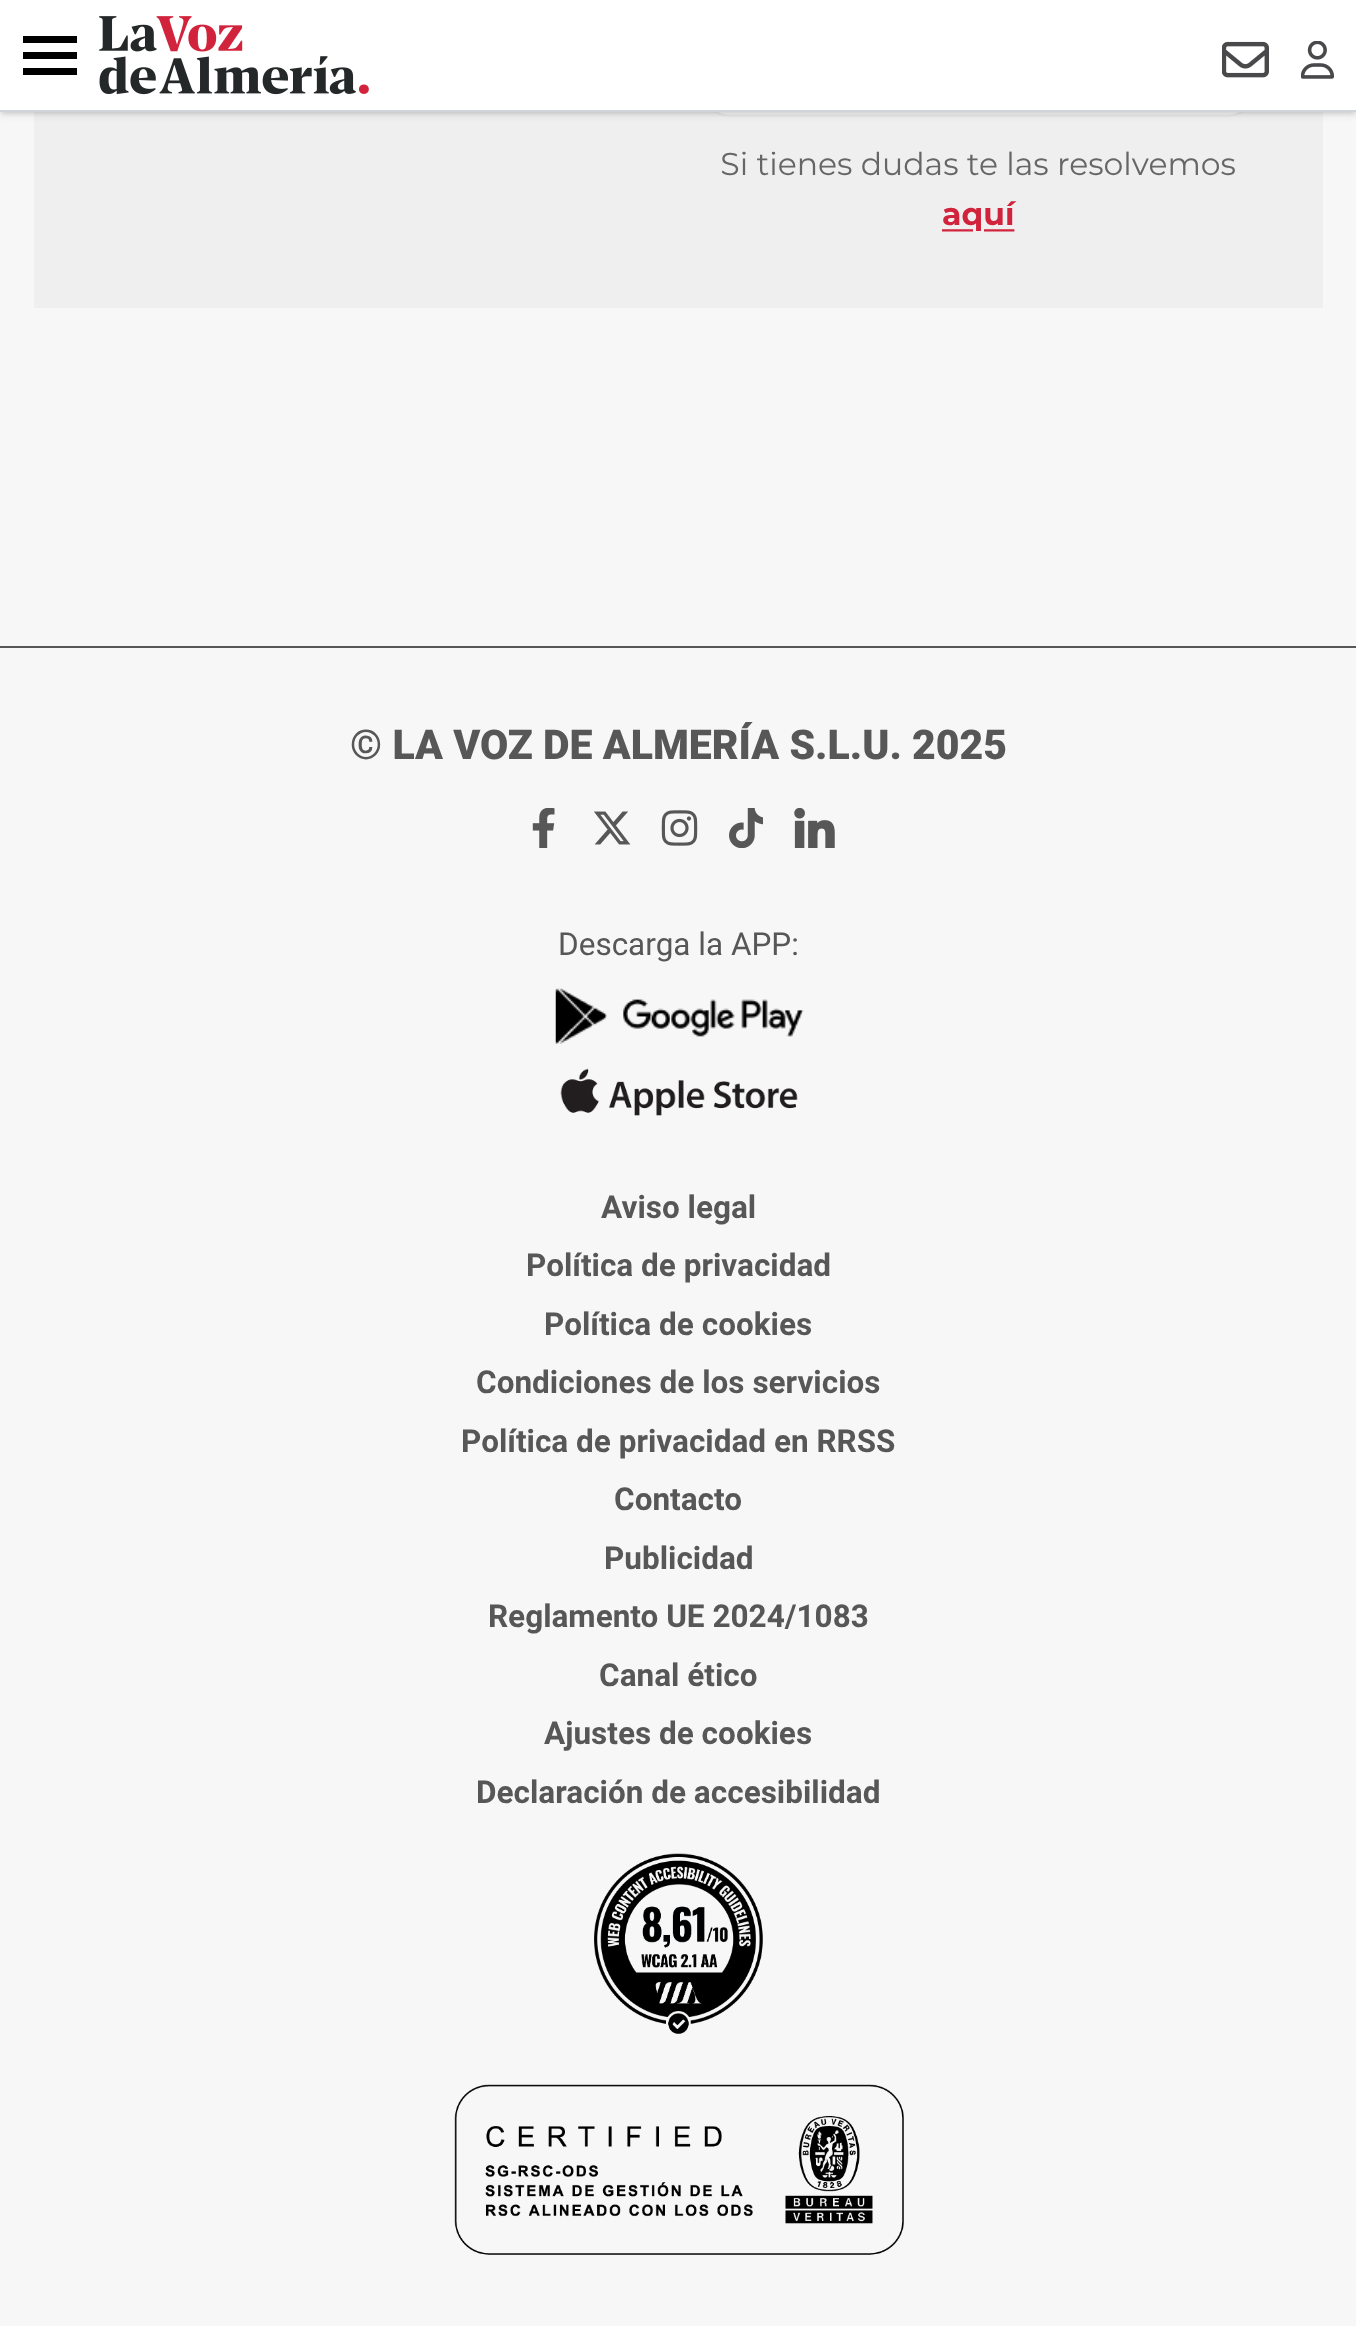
<svg xmlns="http://www.w3.org/2000/svg" width="1356" height="2326">
<rect width="100%" height="100%" fill="#f7f7f7"/>
<image x="34" y="112" width="1289" height="196" href="media/4.png"/>
<rect x="2" y="5" width="1353" height="108" fill="#0000001a" filter="blur(2px)"/>
<rect y="2" width="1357" height="113" fill="#0000001a" filter="blur(3.5px)"/>
<rect width="1356" height="110" fill="#fff"/>
<rect y="110" width="1356" height="2" fill="#d1d5db"/>
<rect x="23" y="52" width="54" height="7" fill="#000"/>
<rect x="23" y="36" width="54" height="7" fill="#000"/>
<rect x="23" y="68" width="54" height="7" fill="#000"/>
<image x="99" y="16" width="270" height="79" href="media/1.png"/>
<image x="1222" y="41" width="47" height="37" href="media/2.png"/>
<image x="1301" y="41" width="33" height="38" href="media/3.png"/>
<rect y="646" width="1356" height="2" fill="#575757"/>
<text x="350" y="759" style="font-family:Roboto;font-size:41px;font-weight:900;fill:#575757">© LA VOZ DE ALMERÍA S.L.U. 2025</text>
<image x="532" y="808" width="23" height="40" href="media/5.png"/>
<image x="594" y="811" width="37" height="34" href="media/6.png"/>
<image x="661" y="810" width="37" height="36" href="media/7.png"/>
<image x="729" y="808" width="34" height="40" href="media/8.png"/>
<image x="794" y="808" width="41" height="40" href="media/9.png"/>
<text x="558" y="955" style="font-family:Roboto;font-size:31.5px;fill:#575757">Descarga la APP:</text>
<image x="555" y="987" width="249" height="57" href="media/10.png"/>
<image x="560" y="1068" width="238" height="48" href="media/11.png"/>
<text x="601" y="1218" style="font-family:Roboto;font-size:31.5px;font-weight:bold;fill:#575757">Aviso legal</text>
<text x="526" y="1276" style="font-family:Roboto;font-size:31.5px;font-weight:bold;fill:#575757">Política de privacidad</text>
<text x="544" y="1335" style="font-family:Roboto;font-size:31.5px;font-weight:bold;fill:#575757">Política de cookies</text>
<text x="476" y="1393" style="font-family:Roboto;font-size:31.5px;font-weight:bold;fill:#575757">Condiciones de los servicios</text>
<text x="461" y="1452" style="font-family:Roboto;font-size:31.5px;font-weight:bold;fill:#575757">Política de privacidad en RRSS</text>
<text x="614" y="1510" style="font-family:Roboto;font-size:31.5px;font-weight:bold;fill:#575757">Contacto</text>
<text x="604" y="1569" style="font-family:Roboto;font-size:31.5px;font-weight:bold;fill:#575757">Publicidad</text>
<text x="488" y="1627" style="font-family:Roboto;font-size:31.5px;font-weight:bold;fill:#575757">Reglamento UE 2024/1083</text>
<text x="599" y="1686" style="font-family:Roboto;font-size:31.5px;font-weight:bold;fill:#575757">Canal ético</text>
<text x="544" y="1744" style="font-family:Roboto;font-size:31.5px;font-weight:bold;fill:#575757">Ajustes de cookies</text>
<text x="476" y="1803" style="font-family:Roboto;font-size:31.5px;font-weight:bold;fill:#575757">Declaración de accesibilidad</text>
<image x="594" y="1853" width="169" height="181" href="media/12.png"/>
<image x="454" y="2084" width="450" height="171" href="media/13.png"/>
</svg>
